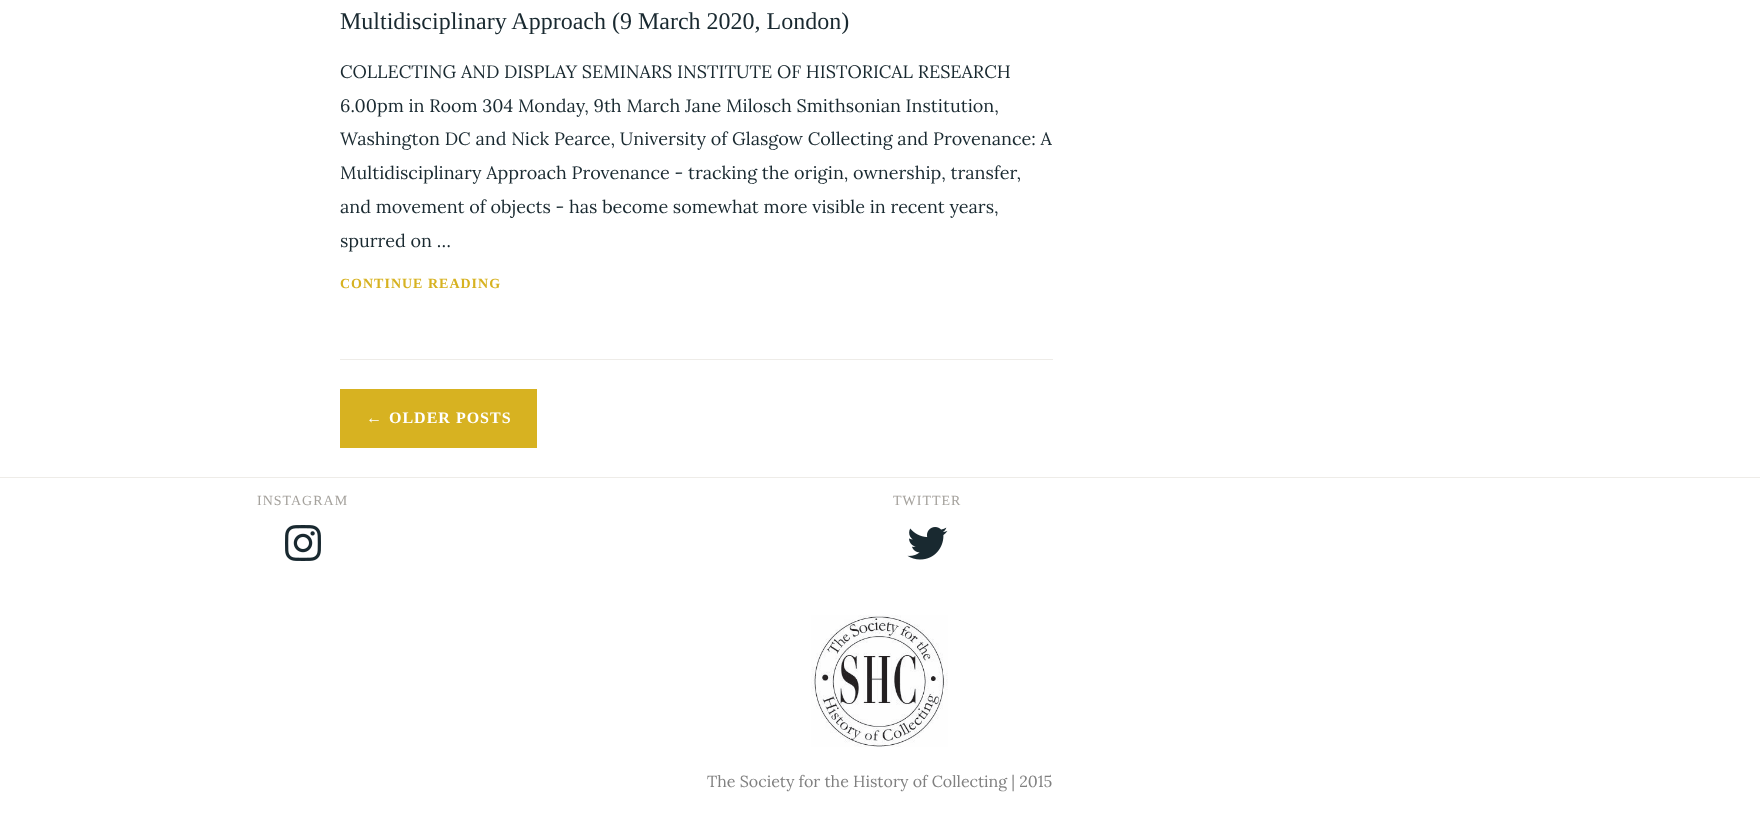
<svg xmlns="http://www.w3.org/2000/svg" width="1760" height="825">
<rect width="100%" height="100%" fill="#fff"/>
<rect x="340" y="359" width="713" height="1" fill="#eeece8"/>
<text x="340" y="29" style="font-family:Liberation Serif;font-size:24px;fill:#192930">Multidisciplinary Approach (9 March 2020, London)</text>
<text x="340" y="78" style="font-family:Lora;font-size:18px;fill:#192930">COLLECTING AND DISPLAY SEMINARS INSTITUTE OF HISTORICAL RESEARCH</text>
<text x="340" y="112" style="font-family:Lora;font-size:18px;fill:#192930">6.00pm in Room 304 Monday, 9th March Jane Milosch Smithsonian Institution,</text>
<text x="340" y="145" style="font-family:Lora;font-size:18px;fill:#192930">Washington DC and Nick Pearce, University of Glasgow Collecting and Provenance: A</text>
<text x="340" y="179" style="font-family:Lora;font-size:18px;fill:#192930">Multidisciplinary Approach Provenance - tracking the origin, ownership, transfer,</text>
<text x="340" y="213" style="font-family:Lora;font-size:18px;fill:#192930">and movement of objects - has become somewhat more visible in recent years,</text>
<text x="340" y="247" style="font-family:Lora;font-size:18px;fill:#192930">spurred on …</text>
<text x="340" y="288" style="font-family:Liberation Serif;font-size:14px;font-weight:bold;letter-spacing:1px;fill:#d7b221">CONTINUE READING</text>
<rect x="340" y="389" width="197" height="59" fill="#d7b221"/>
<text x="366" y="423" style="font-family:Liberation Serif;font-size:16px;font-weight:bold;letter-spacing:1px;fill:#fff">←</text>
<text x="389" y="423" style="font-family:Liberation Serif;font-size:16px;font-weight:bold;letter-spacing:1px;fill:#fff">OLDER POSTS</text>
<rect y="477" width="1760" height="1" fill="#eeece8"/>
<text x="257" y="505" style="font-family:Liberation Serif;font-size:14px;letter-spacing:1px;fill:#a5a29d">INSTAGRAM</text>
<image x="285" y="525" width="36" height="36" href="media/1.png"/>
<text x="893" y="505" style="font-family:Liberation Serif;font-size:14px;letter-spacing:1px;fill:#a5a29d">TWITTER</text>
<image x="907" y="527" width="41" height="33" href="media/2.png"/>
<image x="811" y="615" width="137" height="132" href="media/3.png"/>
<text x="707" y="787" style="font-family:Lora;font-size:16px;fill:#808080">The Society for the History of Collecting | 2015</text>
</svg>
